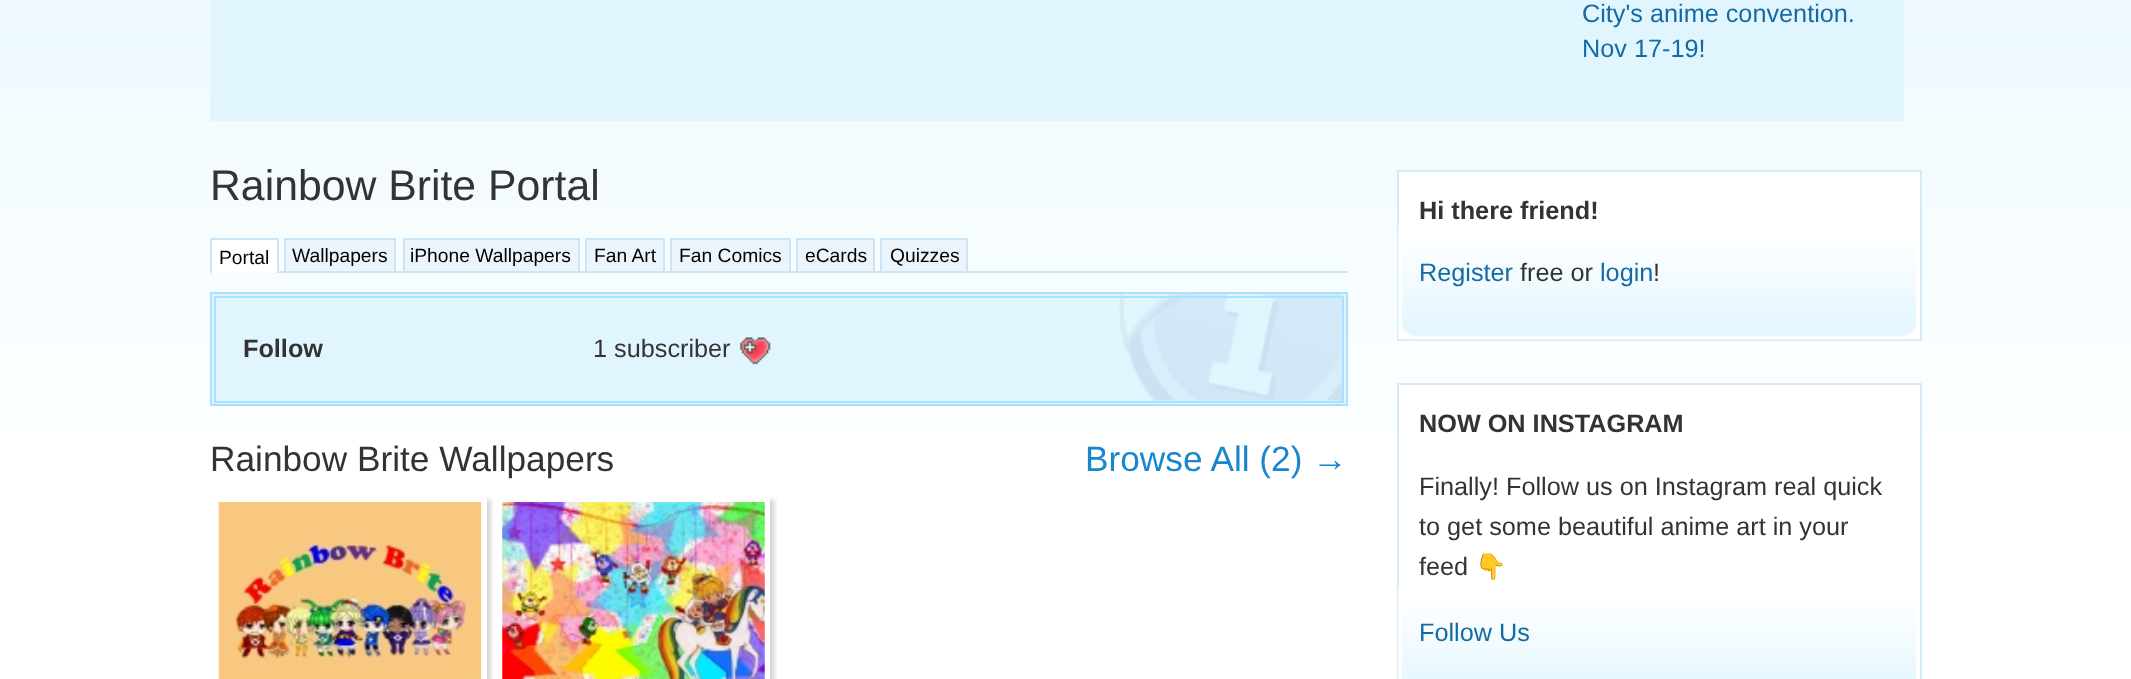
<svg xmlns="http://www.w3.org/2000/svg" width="2131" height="679">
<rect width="100%" height="100%" fill="#fff"/>
<image x="0" y="0" width="2131" height="432" href="media/1.png"/>
<rect x="210" width="1694" height="121" fill="#e1f5ff"/>
<text x="1582" y="22" style="font-family:Liberation Sans;font-size:25.25px;fill:#156aa1">City's anime convention.</text>
<text x="1582" y="57" style="font-family:Liberation Sans;font-size:25.25px;fill:#156aa1">Nov 17-19!</text>
<text x="210" y="200" style="font-family:Liberation Sans;font-size:42.75px;fill:#333">Rainbow Brite Portal</text>
<rect x="279" y="271" width="1069" height="2" fill="#cbe5f6"/>
<rect x="212" y="240" width="65" height="33" fill="#fff"/>
<text x="219" y="264" style="font-family:Liberation Sans;font-size:19.25px;fill:#000">Portal</text>
<rect x="210" y="238" width="68" height="2" fill="#cbe5f6"/>
<rect x="277" y="238" width="2" height="35" fill="#cbe5f6"/>
<rect x="210" y="238" width="2" height="35" fill="#cbe5f6"/>
<rect x="286" y="240" width="108" height="31" fill="#edf5fc"/>
<text x="292" y="262" style="font-family:Liberation Sans;font-size:19.25px;fill:#000">Wallpapers</text>
<rect x="284" y="238" width="112" height="2" fill="#cbe5f6"/>
<rect x="394" y="238" width="2" height="33" fill="#cbe5f6"/>
<rect x="284" y="238" width="2" height="33" fill="#cbe5f6"/>
<rect x="405" y="240" width="173" height="31" fill="#edf5fc"/>
<text x="410" y="262" style="font-family:Liberation Sans;font-size:19.25px;fill:#000">iPhone Wallpapers</text>
<rect x="403" y="238" width="176" height="2" fill="#cbe5f6"/>
<rect x="578" y="238" width="2" height="33" fill="#cbe5f6"/>
<rect x="403" y="238" width="2" height="33" fill="#cbe5f6"/>
<rect x="587" y="240" width="76" height="31" fill="#edf5fc"/>
<text x="594" y="262" style="font-family:Liberation Sans;font-size:19.25px;fill:#000">Fan Art</text>
<rect x="585" y="238" width="80" height="2" fill="#cbe5f6"/>
<rect x="663" y="238" width="2" height="33" fill="#cbe5f6"/>
<rect x="585" y="238" width="2" height="33" fill="#cbe5f6"/>
<rect x="672" y="240" width="117" height="31" fill="#edf5fc"/>
<text x="679" y="262" style="font-family:Liberation Sans;font-size:19.25px;fill:#000">Fan Comics</text>
<rect x="670" y="238" width="121" height="2" fill="#cbe5f6"/>
<rect x="789" y="238" width="2" height="33" fill="#cbe5f6"/>
<rect x="670" y="238" width="2" height="33" fill="#cbe5f6"/>
<rect x="798" y="240" width="75" height="31" fill="#edf5fc"/>
<text x="805" y="262" style="font-family:Liberation Sans;font-size:19.25px;fill:#000">eCards</text>
<rect x="796" y="238" width="79" height="2" fill="#cbe5f6"/>
<rect x="873" y="238" width="2" height="33" fill="#cbe5f6"/>
<rect x="796" y="238" width="2" height="33" fill="#cbe5f6"/>
<rect x="882" y="240" width="84" height="31" fill="#edf5fc"/>
<text x="890" y="262" style="font-family:Liberation Sans;font-size:19.25px;fill:#000">Quizzes</text>
<rect x="880" y="238" width="88" height="2" fill="#cbe5f6"/>
<rect x="966" y="238" width="2" height="33" fill="#cbe5f6"/>
<rect x="880" y="238" width="2" height="33" fill="#cbe5f6"/>
<rect x="212" y="294" width="1134" height="110" fill="#e1f5ff"/>
<image x="1119" y="294" width="224" height="107" href="media/2.png"/>
<rect x="211" y="293" width="1136" height="112" fill="none" stroke="#a8e2ff" stroke-width="2"/>
<rect x="215" y="297" width="1128" height="105" fill="none" stroke="#a8e2ff" stroke-width="2"/>
<text x="243" y="357" style="font-family:Liberation Sans;font-size:25.25px;font-weight:bold;fill:#333">Follow</text>
<text x="593" y="357" style="font-family:Liberation Sans;font-size:25.25px;fill:#333">1 subscriber</text>
<image x="739" y="337" width="32" height="28" href="media/3.png"/>
<text x="210" y="471" style="font-family:Liberation Sans;font-size:35.25px;fill:#333">Rainbow Brite Wallpapers</text>
<text x="1085" y="471" style="font-family:Liberation Sans;font-size:35.25px;fill:#1a86cb">Browse All (2) →</text>
<image x="487" y="497" width="6" height="182" href="media/4.png"/>
<image x="487" y="497" width="6" height="6" href="media/5.png"/>
<image x="218" y="502" width="264" height="177" href="media/6.png"/>
<image x="770" y="497" width="7" height="182" href="media/7.png"/>
<image x="770" y="497" width="7" height="6" href="media/8.png"/>
<image x="502" y="502" width="263" height="177" href="media/9.png"/>
<rect x="1398" y="171" width="523" height="169" fill="#fff" stroke="#d4eaf7" stroke-width="2"/>
<image x="1398" y="225" width="522" height="115" href="media/10.png"/>
<text x="1419" y="219" style="font-family:Liberation Sans;font-size:25.25px;font-weight:bold;fill:#333">Hi there friend!</text>
<text x="1419" y="281" style="font-family:Liberation Sans;font-size:25.25px;fill:#156aa1">Register</text>
<text x="1520" y="281" style="font-family:Liberation Sans;font-size:25.25px;fill:#333">free or</text>
<text x="1600" y="281" style="font-family:Liberation Sans;font-size:25.25px;fill:#156aa1">login</text>
<text x="1653" y="281" style="font-family:Liberation Sans;font-size:25.25px;fill:#333">!</text>
<rect x="1399" y="385" width="521" height="47" fill="#fff"/>
<rect x="1398" y="384" width="523" height="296" fill="none" stroke="#d4eaf7" stroke-width="2"/>
<image x="1398" y="586" width="519" height="93" href="media/11.png"/>
<text x="1419" y="432" style="font-family:Liberation Sans;font-size:25.25px;font-weight:bold;fill:#333">NOW ON INSTAGRAM</text>
<text x="1419" y="495" style="font-family:Liberation Sans;font-size:25.25px;fill:#333">Finally! Follow us on Instagram real quick</text>
<text x="1419" y="535" style="font-family:Liberation Sans;font-size:25.25px;fill:#333">to get some beautiful anime art in your</text>
<text x="1419" y="575" style="font-family:Liberation Sans;font-size:25.25px;fill:#333">feed</text>
<text x="1475" y="575" style="font-family:Noto Color Emoji;font-size:25.25px;fill:#333">👇</text>
<text x="1419" y="641" style="font-family:Liberation Sans;font-size:25.25px;fill:#156aa1">Follow Us</text>
</svg>
